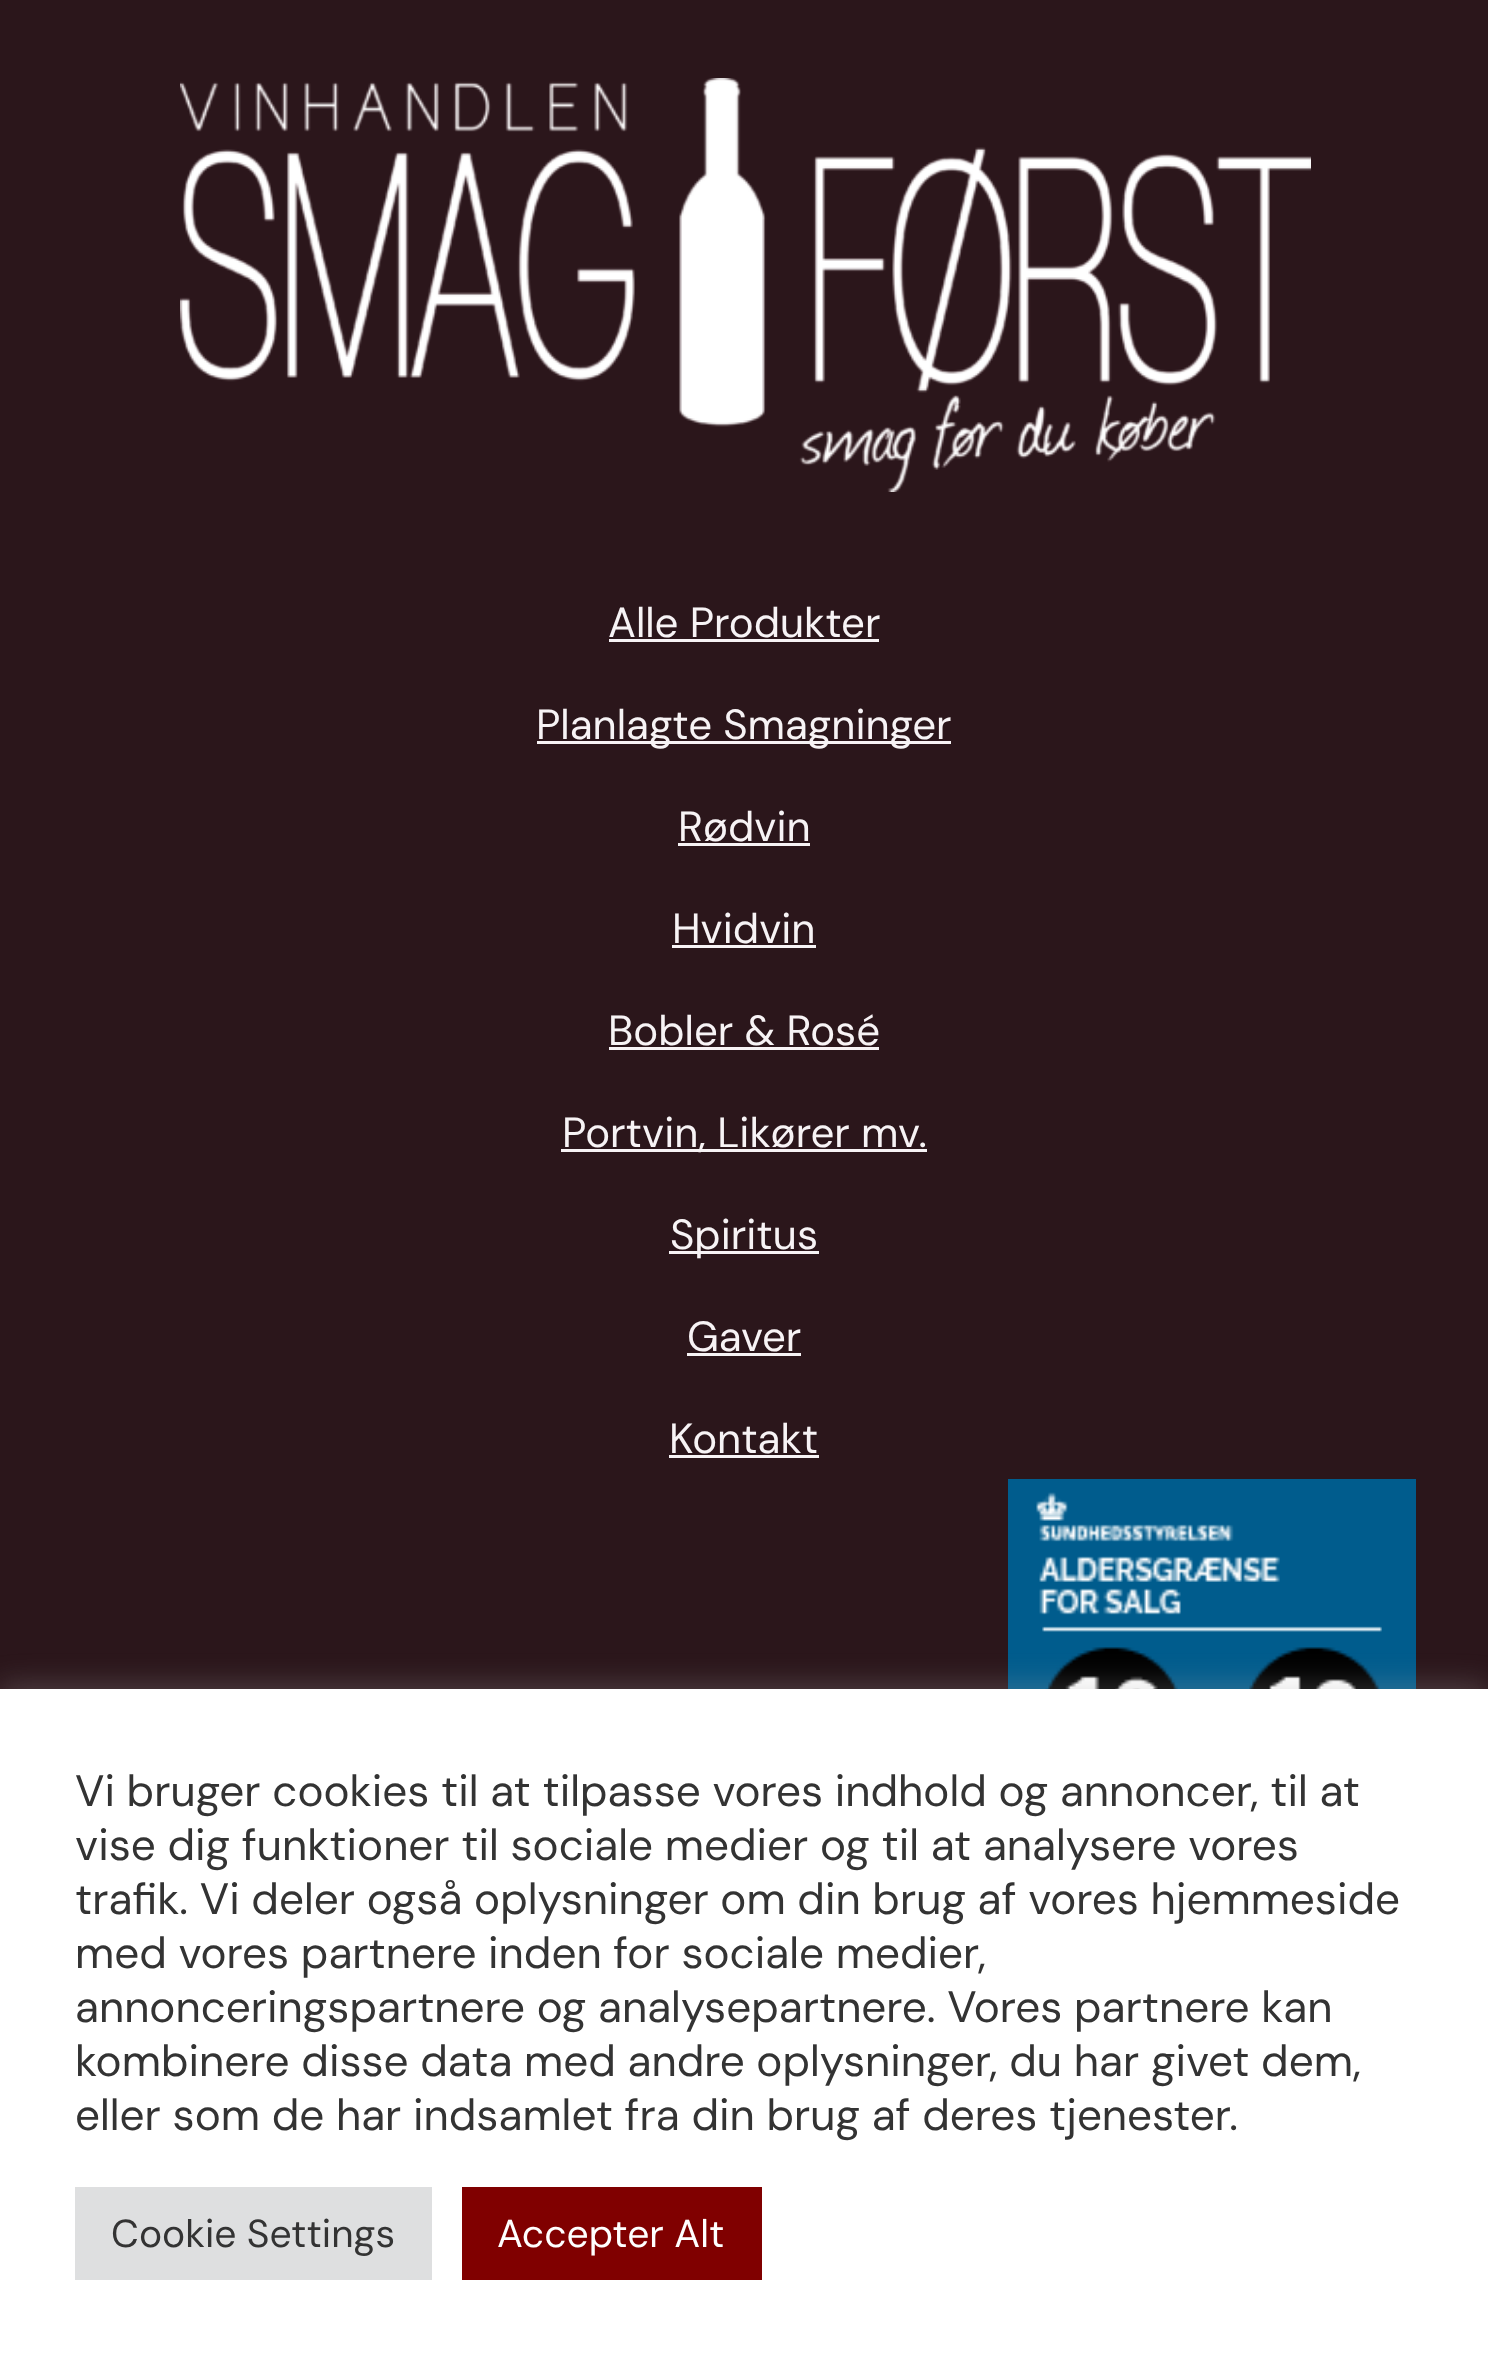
<svg xmlns="http://www.w3.org/2000/svg" width="1488" height="2370">
<rect width="100%" height="100%" fill="#2b161b"/>
<image x="180" y="78" width="1131" height="414" href="media/1.png"/>
<text x="608" y="637" style="font-family:DM Sans;font-size:42px;fill:#f7f3f5">Alle Produkter</text>
<rect x="609" y="639" width="270" height="3" fill="#f7f3f5"/>
<rect x="537" y="741" width="414" height="3" fill="#f7f3f5"/>
<text x="536" y="739" style="font-family:DM Sans;font-size:42px;fill:#f7f3f5">Planlagte Smagninger</text>
<text x="678" y="841" style="font-family:DM Sans;font-size:42px;fill:#f7f3f5">Rødvin</text>
<rect x="678" y="843" width="132" height="3" fill="#f7f3f5"/>
<text x="672" y="943" style="font-family:DM Sans;font-size:42px;fill:#f7f3f5">Hvidvin</text>
<rect x="672" y="945" width="144" height="3" fill="#f7f3f5"/>
<text x="608" y="1045" style="font-family:DM Sans;font-size:42px;fill:#f7f3f5">Bobler &amp; Rosé</text>
<rect x="609" y="1047" width="270" height="3" fill="#f7f3f5"/>
<rect x="561" y="1149" width="366" height="3" fill="#f7f3f5"/>
<text x="562" y="1147" style="font-family:DM Sans;font-size:42px;fill:#f7f3f5">Portvin, Likører mv.</text>
<rect x="669" y="1251" width="150" height="3" fill="#f7f3f5"/>
<text x="670" y="1249" style="font-family:DM Sans;font-size:42px;fill:#f7f3f5">Spiritus</text>
<text x="687" y="1351" style="font-family:DM Sans;font-size:42px;fill:#f7f3f5">Gaver</text>
<rect x="687" y="1353" width="114" height="3" fill="#f7f3f5"/>
<text x="669" y="1453" style="font-family:DM Sans;font-size:42px;fill:#f7f3f5">Kontakt</text>
<rect x="669" y="1455" width="150" height="3" fill="#f7f3f5"/>
<image x="1008" y="1479" width="408" height="210" href="media/2.png"/>
<rect y="1686" width="1488" height="681" fill="#acabab4d" filter="blur(15px)"/>
<rect y="1689" width="1488" height="681" fill="#fff"/>
<text x="75" y="1806" style="font-family:'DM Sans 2';font-size:44px;fill:#333">Vi bruger cookies til at tilpasse vores indhold og annoncer, til at</text>
<text x="75" y="1860" style="font-family:'DM Sans 2';font-size:44px;fill:#333">vise dig funktioner til sociale medier og til at analysere vores</text>
<text x="75" y="1914" style="font-family:'DM Sans 2';font-size:44px;fill:#333">trafik. Vi deler også oplysninger om din brug af vores hjemmeside</text>
<text x="75" y="1968" style="font-family:'DM Sans 2';font-size:44px;fill:#333">med vores partnere inden for sociale medier,</text>
<text x="75" y="2022" style="font-family:'DM Sans 2';font-size:44px;fill:#333">annonceringspartnere og analysepartnere. Vores partnere kan</text>
<text x="75" y="2076" style="font-family:'DM Sans 2';font-size:44px;fill:#333">kombinere disse data med andre oplysninger, du har givet dem,</text>
<text x="75" y="2130" style="font-family:'DM Sans 2';font-size:44px;fill:#333">eller som de har indsamlet fra din brug af deres tjenester.</text>
<rect x="75" y="2187" width="357" height="93" fill="#dedfe0"/>
<text x="111" y="2247" style="font-family:'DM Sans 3';font-size:39px;fill:#333">Cookie Settings</text>
<rect x="462" y="2187" width="300" height="93" fill="#800000"/>
<text x="497" y="2247" style="font-family:'DM Sans 3';font-size:39px;fill:#fff">Accepter Alt</text>
</svg>
